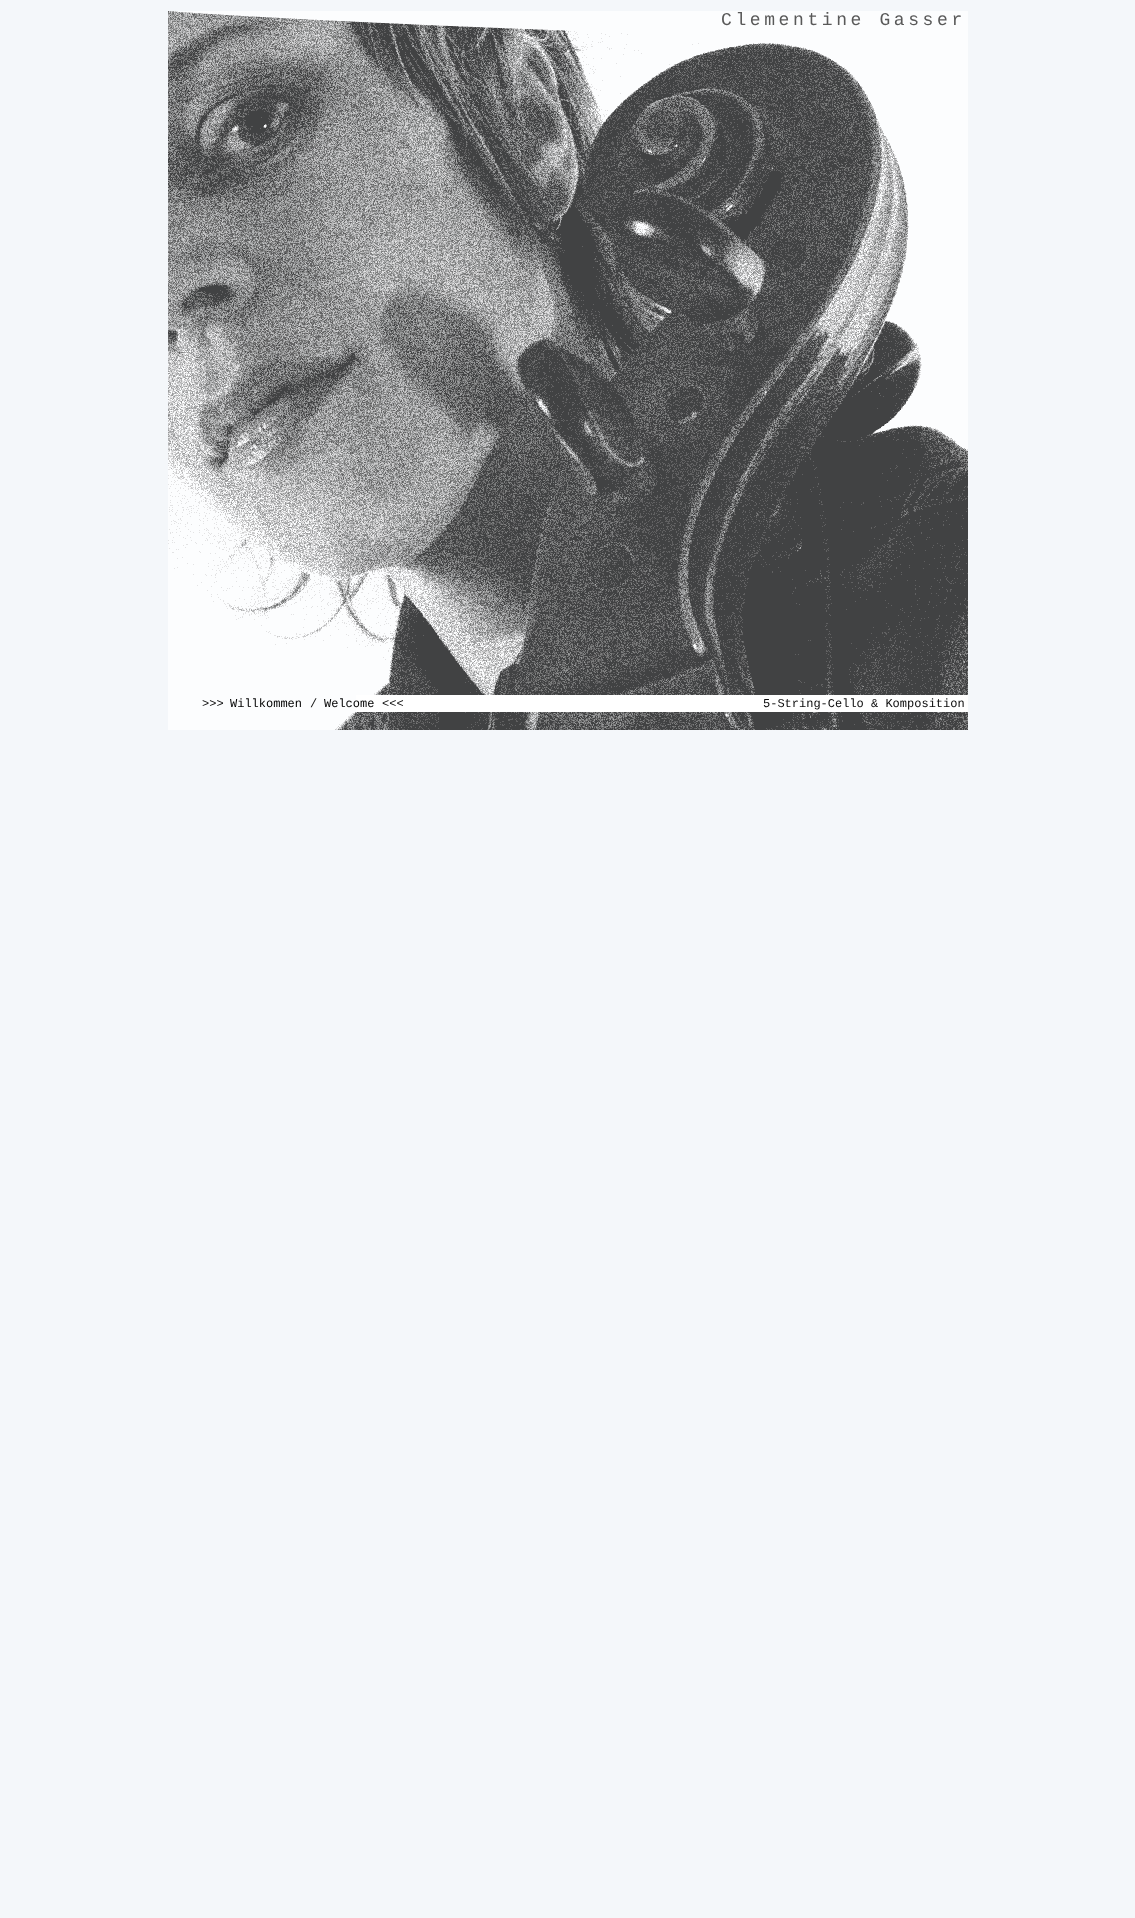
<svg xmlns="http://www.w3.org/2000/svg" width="1135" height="1918">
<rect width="100%" height="100%" fill="#f4f7fa"/>
<image x="168" y="11" width="800" height="719" href="media/1.png"/>
<text x="721" y="25" style="font-family:Liberation Mono;font-size:18px;letter-spacing:3.6px;fill:#595959">Clementine Gasser</text>
<rect x="356" y="695" width="612" height="17" fill="#fff"/>
<text x="202" y="707" style="font-family:Liberation Mono;font-size:12px;fill:#0a0a0a">&gt;&gt;&gt;</text>
<text x="230" y="707" style="font-family:Liberation Mono;font-size:12px;fill:#000">Willkommen</text>
<text x="310" y="707" style="font-family:Liberation Mono;font-size:12px;fill:#0a0a0a">/</text>
<text x="324" y="707" style="font-family:Liberation Mono;font-size:12px;fill:#000">Welcome</text>
<text x="382" y="707" style="font-family:Liberation Mono;font-size:12px;fill:#0a0a0a">&lt;&lt;&lt;</text>
<text x="763" y="707" style="font-family:Liberation Mono;font-size:12px;fill:#0a0a0a">5-String-Cello &amp; Komposition</text>
</svg>
